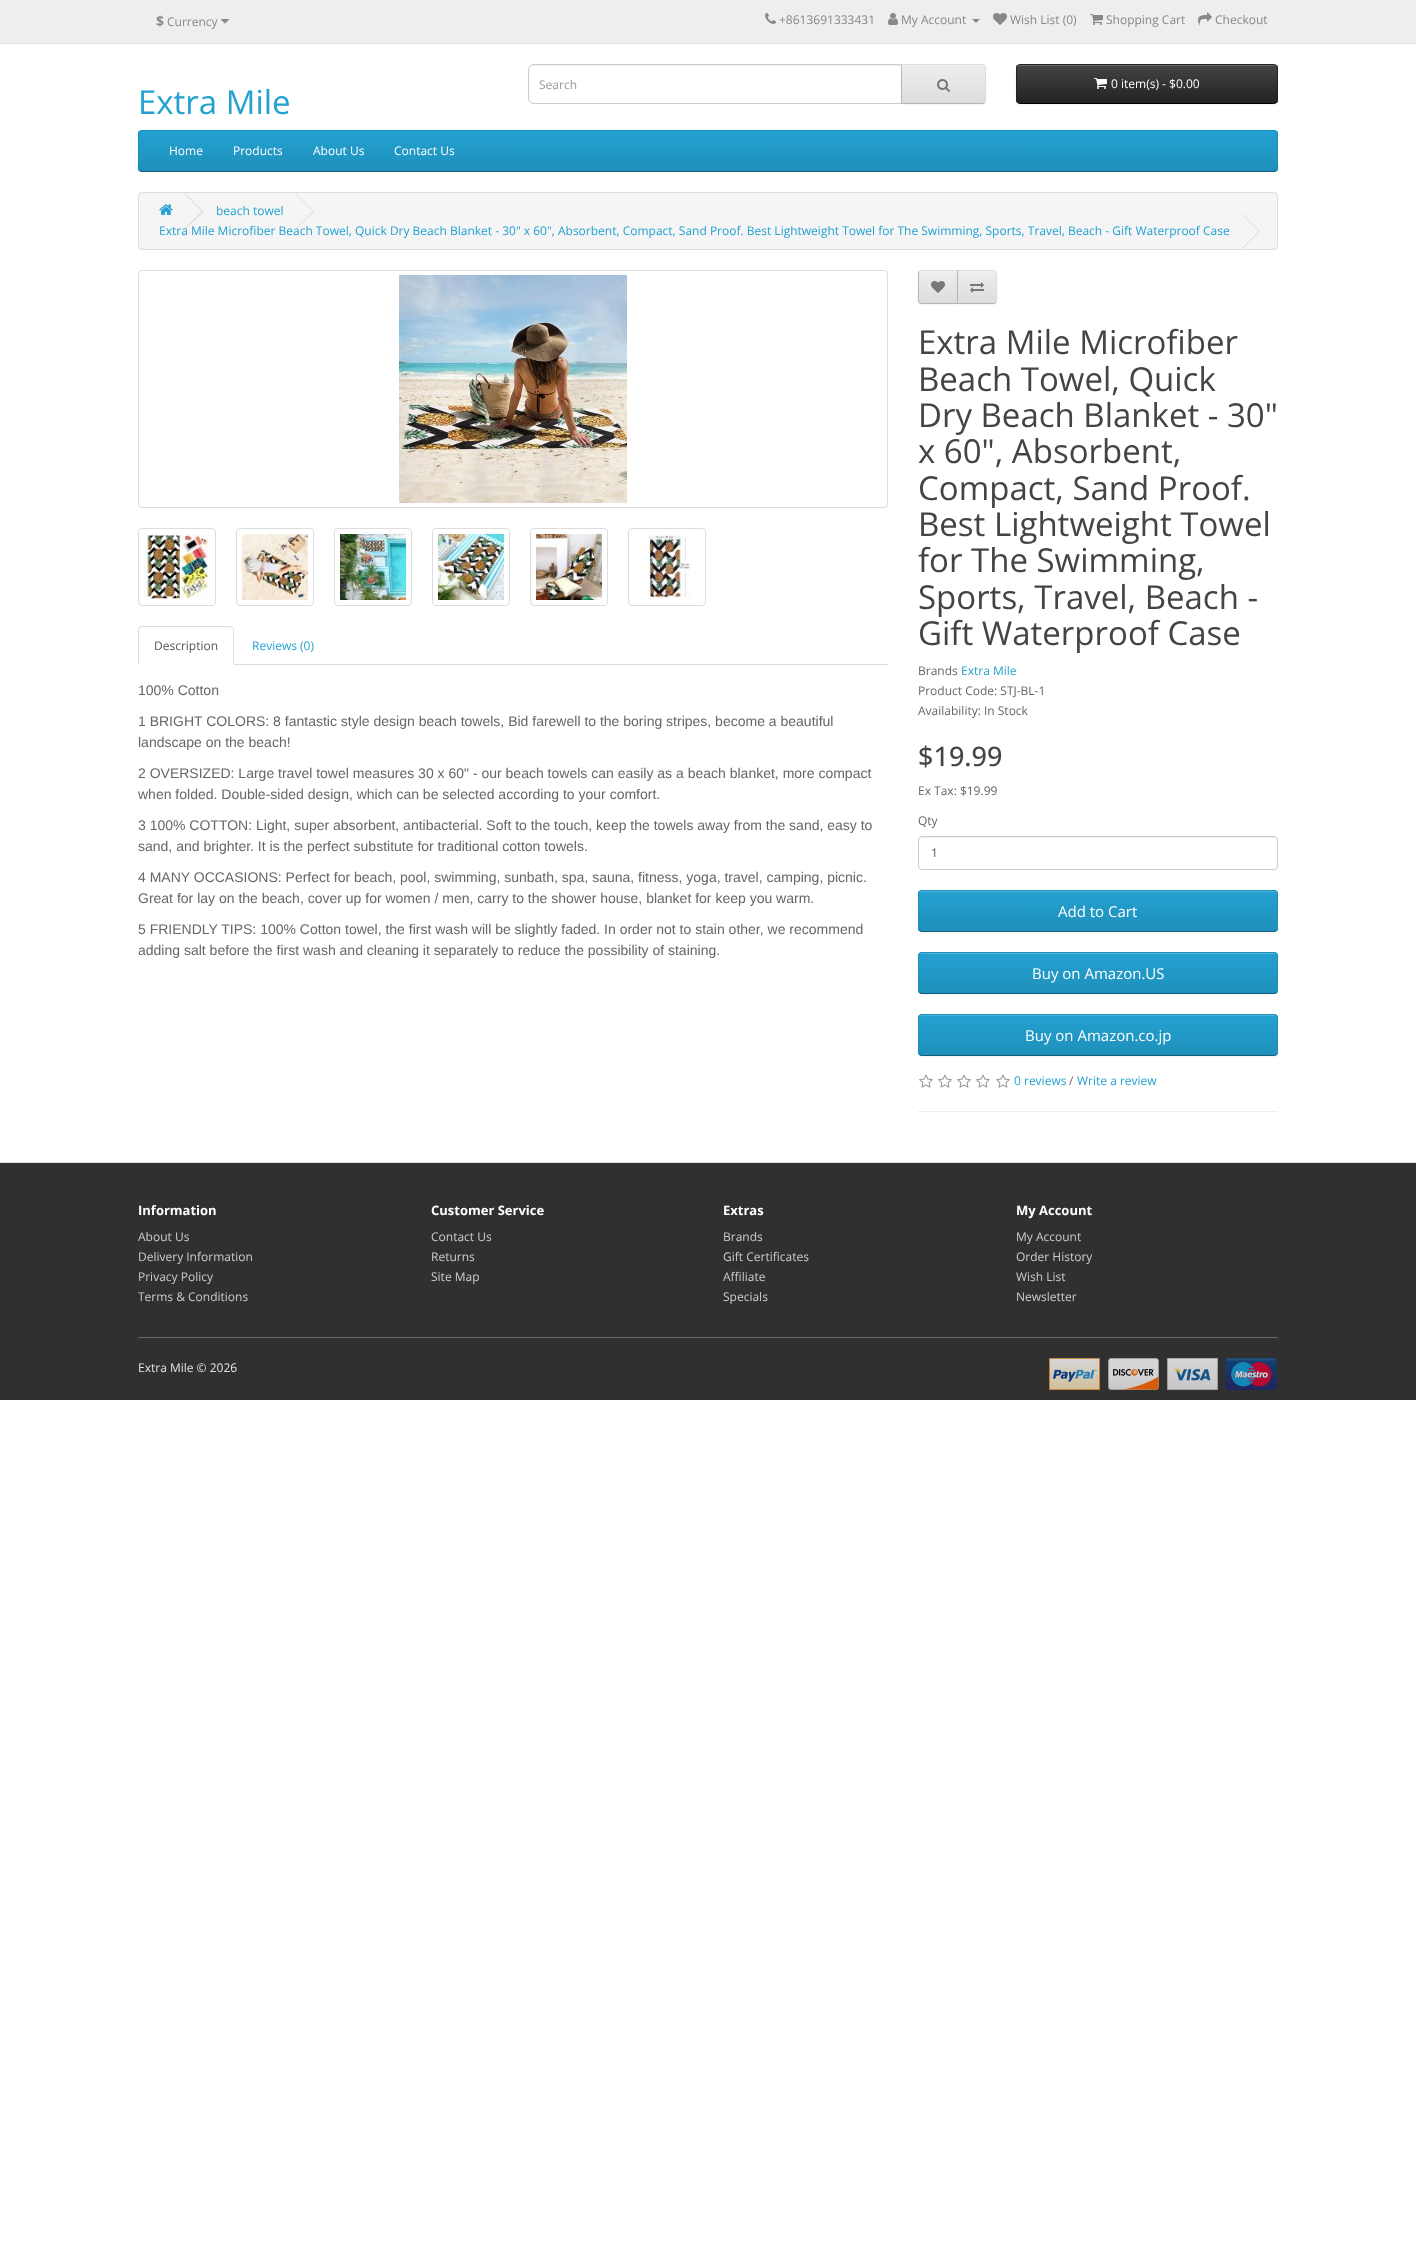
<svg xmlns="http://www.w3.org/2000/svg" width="1416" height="2259">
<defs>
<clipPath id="clip1"><path d="M901 64h81c2 0 4 2 4 4v32c0 2-2 4-4 4h-81z"/></clipPath>
<linearGradient id="g1" gradientUnits="userSpaceOnUse" x1="944" y1="65" x2="944" y2="103"><stop offset="0" stop-color="#eee"/><stop offset="1" stop-color="#ddd"/></linearGradient>
<clipPath id="clip2"><rect x="1016" y="64" width="262" height="40" rx="4"/></clipPath>
<linearGradient id="g2" gradientUnits="userSpaceOnUse" x1="1147" y1="65" x2="1147" y2="103"><stop offset="0" stop-color="#444"/><stop offset="1" stop-color="#222"/></linearGradient>
<clipPath id="clip3"><rect x="138" y="130" width="1140" height="42" rx="4"/></clipPath>
<linearGradient id="g3" gradientUnits="userSpaceOnUse" x1="708" y1="131" x2="708" y2="171"><stop offset="0" stop-color="#23a1d1"/><stop offset="1" stop-color="#1f90bb"/></linearGradient>
<clipPath id="clip4"><path d="M922 270h36v34h-36c-2 0-4-2-4-4v-26c0-2 2-4 4-4z"/></clipPath>
<linearGradient id="g4" gradientUnits="userSpaceOnUse" x1="938" y1="271" x2="938" y2="303"><stop offset="0" stop-color="#eee"/><stop offset="1" stop-color="#ddd"/></linearGradient>
<clipPath id="clip5"><path d="M957 270h36c2 0 4 2 4 4v26c0 2-2 4-4 4h-36z"/></clipPath>
<linearGradient id="g5" gradientUnits="userSpaceOnUse" x1="977" y1="271" x2="977" y2="303"><stop offset="0" stop-color="#eee"/><stop offset="1" stop-color="#ddd"/></linearGradient>
<clipPath id="clip6"><rect x="918" y="890" width="360" height="42" rx="4"/></clipPath>
<linearGradient id="g6" gradientUnits="userSpaceOnUse" x1="1098" y1="891" x2="1098" y2="931"><stop offset="0" stop-color="#23a1d1"/><stop offset="1" stop-color="#1f90bb"/></linearGradient>
<clipPath id="clip7"><rect x="918" y="952" width="360" height="42" rx="4"/></clipPath>
<linearGradient id="g7" gradientUnits="userSpaceOnUse" x1="1098" y1="953" x2="1098" y2="993"><stop offset="0" stop-color="#23a1d1"/><stop offset="1" stop-color="#1f90bb"/></linearGradient>
<clipPath id="clip8"><rect x="918" y="1014" width="360" height="42" rx="4"/></clipPath>
<linearGradient id="g8" gradientUnits="userSpaceOnUse" x1="1098" y1="1015" x2="1098" y2="1055"><stop offset="0" stop-color="#23a1d1"/><stop offset="1" stop-color="#1f90bb"/></linearGradient>
</defs>
<rect width="100%" height="100%" fill="#fff"/>
<rect width="1416" height="43" fill="#eee"/>
<rect y="43" width="1416" height="1" fill="#e2e2e2"/>
<text x="156" y="26" style="font-family:Open Sans;font-size:14px;font-weight:bold;fill:#888">$</text>
<text x="167" y="26" style="font-family:Open Sans;font-size:12px;fill:#888">Currency</text>
<image x="221" y="19" width="8" height="5" href="media/1.png"/>
<image x="765" y="13" width="11" height="11" href="media/2.png"/>
<text x="779" y="24" style="font-family:Open Sans;font-size:12px;fill:#888">+8613691333431</text>
<image x="888" y="13" width="10" height="12" href="media/3.png"/>
<text x="901" y="24" style="font-family:Open Sans;font-size:12px;fill:#888">My Account</text>
<path d="M972 19h8l-4 4z" fill="#888"/>
<image x="993" y="13" width="14" height="12" href="media/4.png"/>
<text x="1010" y="24" style="font-family:Open Sans;font-size:12px;fill:#888">Wish List (0)</text>
<image x="1090" y="14" width="13" height="11" href="media/5.png"/>
<text x="1106" y="24" style="font-family:Open Sans;font-size:12px;fill:#888">Shopping Cart</text>
<image x="1198" y="12" width="14" height="13" href="media/6.png"/>
<text x="1215" y="24" style="font-family:Open Sans;font-size:12px;fill:#888">Checkout</text>
<path d="M534 66h367v-1h-367c-3 0-5 2-5 5v1c0-3 2-5 5-5z" fill="#ececec"/>
<path d="M534 64.5h367.5v39h-367.5c-3 0-5.5-2.5-5.5-5.5v-28c0-3 2.5-5.5 5.5-5.5z" fill="none" stroke="#ccc"/>
<text x="539" y="89" style="font-family:Open Sans;font-size:12px;fill:#999">Search</text>
<rect x="901" y="65" width="85" height="40" rx="4" fill="#0000000d" filter="blur(1px)"/>
<path d="M901 64h81c2 0 4 2 4 4v32c0 2-2 4-4 4h-81z" fill="#e7e7e7"/>
<g clip-path="url(#clip1)">
<rect x="902" y="65" width="84" height="38" fill="url(#g1)"/>
</g>
<path d="M902 66h80c2 0 3 1 3 3v-1c0-2-1-3-3-3h-80z" fill="#f1f1f1"/>
<path d="M901 64l1 1h81l1 1l1-1l-3-1z" fill="#ddd"/>
<path d="M986 100v-32c0-1-.5-2-1-3l-1 1c1 0 1 1 1 2v32c0 1 0 2-1 2l1 1c.5-1 1-2 1-3z" fill="#ddd"/>
<path d="M982 104l3-1l-1-1l-1 1h-81l-1 1z" fill="#b3b3b3"/>
<path d="M901 64v40l1-1v-38z" fill="#b7b7b7"/>
<image x="937" y="79" width="13" height="13" href="media/7.png"/>
<rect x="1016" y="65" width="262" height="40" rx="4" fill="#0000000d" filter="blur(1px)"/>
<g clip-path="url(#clip2)">
<rect x="1016" y="65" width="262" height="38" fill="url(#g2)"/>
</g>
<path d="M1020 66h255l2 1v2v-1c0-2-1-3-3-3h-254c-2 0-3 1-3 3v1c0-2 1-3 3-3z" fill="#696969"/>
<path d="M1276.5 102.5c-.5 .5-1.5 1-2.5 1h-254c-1 0-2-.5-2.5-1" fill="none" stroke="#000"/>
<path d="M1017.5 102.5c-.5-.5-1-1.5-1-2.5v-32c0-1 .5-2 1-2.5c.5-.5 1.5-1 2.5-1h254c1 0 2 .5 2.5 1c.5 .5 1 1.5 1 2.5v32c0 1-.5 2-1 2.5" fill="none" stroke="#222"/>
<image x="1094" y="78" width="13" height="11" href="media/8.png"/>
<text x="1111" y="88" style="font-family:Open Sans;font-size:12px;fill:#fff">0 item(s) - $0.00</text>
<text x="138" y="114" style="font-family:Open Sans;font-size:33px;fill:#23a1d1">Extra Mile</text>
<rect x="138" y="130" width="1140" height="42" rx="4" fill="#229ac8"/>
<g clip-path="url(#clip3)">
<rect x="138" y="131" width="1140" height="40" fill="url(#g3)"/>
</g>
<path d="M1276.5 170.5l-2.5 1h-1132l-2.5-1" fill="none" stroke="#145e7a"/>
<path d="M139.5 170.5c-2-2-1-6.5-1-8v-23c0-2.5-1-9 3.5-9h1132c4.5 0 3.5 6.5 3.5 9v23c0 1.5 1 6-1 8" fill="none" stroke="#1f90bb"/>
<text x="169" y="155" style="font-family:Open Sans;font-size:12px;fill:#fff">Home</text>
<text x="233" y="155" style="font-family:Open Sans;font-size:12px;fill:#fff">Products</text>
<text x="313" y="155" style="font-family:Open Sans;font-size:12px;fill:#fff">About Us</text>
<text x="394" y="155" style="font-family:Open Sans;font-size:12px;fill:#fff">Contact Us</text>
<rect x="138.5" y="192.5" width="1139" height="57" rx="3.5" fill="#f5f5f5" stroke="#ddd"/>
<image x="159" y="204" width="14" height="11" href="media/9.png"/>
<path d="M184 193.5l1-.5l18.5 18.5l-1 .5z" fill="#ddd"/>
<path d="M184 229l18.5-18.5l1 1l-18.5 18z" fill="#ddd"/>
<text x="216" y="215" style="font-family:Open Sans;font-size:12px;fill:#23a1d1">beach towel</text>
<path d="M295 193.5l.5-.5l18.5 18.5l-.5 .5z" fill="#ddd"/>
<path d="M295 229l18.5-18.5l.5 1l-18.5 18z" fill="#ddd"/>
<text x="159" y="235" style="font-family:Open Sans;font-size:12px;fill:#23a1d1">Extra Mile Microfiber Beach Towel, Quick Dry Beach Blanket - 30" x 60", Absorbent, Compact, Sand Proof. Best Lightweight Towel for The Swimming, Sports, Travel, Beach - Gift Waterproof Case</text>
<path d="M1241 213.5l.5-.5l18.5 18.5l-.5 .5z" fill="#ddd"/>
<path d="M1241 249l18.5-18.5l.5 1l-18.5 18z" fill="#ddd"/>
<rect x="138.5" y="270.5" width="749" height="237" rx="3.5" fill="none" stroke="#ddd"/>
<image x="399" y="275" width="228" height="228" href="media/10.png"/>
<rect x="138.5" y="528.5" width="77" height="77" rx="3.5" fill="none" stroke="#ddd"/>
<image x="144" y="534" width="66" height="66" href="media/11.png"/>
<rect x="236.5" y="528.5" width="77" height="77" rx="3.5" fill="none" stroke="#ddd"/>
<image x="242" y="534" width="66" height="66" href="media/12.png"/>
<rect x="334.5" y="528.5" width="77" height="77" rx="3.5" fill="none" stroke="#ddd"/>
<image x="340" y="534" width="66" height="66" href="media/13.png"/>
<rect x="432.5" y="528.5" width="77" height="77" rx="3.5" fill="none" stroke="#ddd"/>
<image x="438" y="534" width="66" height="66" href="media/14.png"/>
<rect x="530.5" y="528.5" width="77" height="77" rx="3.5" fill="none" stroke="#ddd"/>
<image x="536" y="534" width="66" height="66" href="media/15.png"/>
<rect x="628.5" y="528.5" width="77" height="77" rx="3.5" fill="none" stroke="#ddd"/>
<image x="648" y="534" width="43" height="66" href="media/16.png"/>
<rect x="234" y="664" width="654" height="1" fill="#ddd"/>
<path d="M142 626l-3 1l1 1l2-1h88l2 1l1-1l-3-1z" fill="#ddd"/>
<path d="M234 665v-35c0-1-.5-2-1-3l-1 1c1 0 1 1 1 2v34z" fill="#ddd"/>
<path d="M138 665l1-1v-34c0-1 0-2 1-2l-1-1c-.5 1-1 2-1 3z" fill="#ddd"/>
<text x="154" y="650" style="font-family:Open Sans;font-size:12px;fill:#555">Description</text>
<text x="252" y="650" style="font-family:Open Sans;font-size:12px;fill:#23a1d1">Reviews (0)</text>
<text x="138" y="695" style="font-family:Liberation Sans;font-size:14px;fill:#666">100% Cotton</text>
<text x="138" y="726" style="font-family:Liberation Sans;font-size:14px;fill:#666">1 BRIGHT COLORS: 8 fantastic style design beach towels, Bid farewell to the boring stripes, become a beautiful</text>
<text x="138" y="747" style="font-family:Liberation Sans;font-size:14px;fill:#666">landscape on the beach!</text>
<text x="138" y="778" style="font-family:Liberation Sans;font-size:14px;fill:#666">2 OVERSIZED: Large travel towel measures 30 x 60" - our beach towels can easily as a beach blanket, more compact</text>
<text x="138" y="799" style="font-family:Liberation Sans;font-size:14px;fill:#666">when folded. Double-sided design, which can be selected according to your comfort.</text>
<text x="138" y="830" style="font-family:Liberation Sans;font-size:14px;fill:#666">3 100% COTTON: Light, super absorbent, antibacterial. Soft to the touch, keep the towels away from the sand, easy to</text>
<text x="138" y="851" style="font-family:Liberation Sans;font-size:14px;fill:#666">sand, and brighter. It is the perfect substitute for traditional cotton towels.</text>
<text x="138" y="882" style="font-family:Liberation Sans;font-size:14px;fill:#666">4 MANY OCCASIONS: Perfect for beach, pool, swimming, sunbath, spa, sauna, fitness, yoga, travel, camping, picnic.</text>
<text x="138" y="903" style="font-family:Liberation Sans;font-size:14px;fill:#666">Great for lay on the beach, cover up for women / men, carry to the shower house, blanket for keep you warm.</text>
<text x="138" y="934" style="font-family:Liberation Sans;font-size:14px;fill:#666">5 FRIENDLY TIPS: 100% Cotton towel, the first wash will be slightly faded. In order not to stain other, we recommend</text>
<text x="138" y="955" style="font-family:Liberation Sans;font-size:14px;fill:#666">adding salt before the first wash and cleaning it separately to reduce the possibility of staining.</text>
<rect x="918" y="271" width="40" height="34" rx="4" fill="#0000000d" filter="blur(1px)"/>
<g clip-path="url(#clip4)">
<rect x="918" y="271" width="39" height="32" fill="url(#g4)"/>
</g>
<path d="M922 272h35v-1h-35c-1.5 0-3 1.5-3 3v1c0-2 1-3 3-3z" fill="#f1f1f1"/>
<path d="M922 270c-1 0-2 .5-3 1l1 1c0-1 1-1 2-1h35l1-1z" fill="#ddd"/>
<path d="M958 304l-1-1h-35c-1 0-2 0-2-1l-1 1c1 .5 2 1 3 1z" fill="#b3b3b3"/>
<path d="M918 274v26c0 1 .5 2 1 3l1-1c-1 0-1-1-1-2v-26c0-1 0-2 1-2l-1-1c-.5 1-1 2-1 3z" fill="#b7b7b7"/>
<image x="931" y="281" width="14" height="12" href="media/17.png"/>
<rect x="957" y="271" width="40" height="34" rx="4" fill="#0000000d" filter="blur(1px)"/>
<g clip-path="url(#clip5)">
<rect x="958" y="271" width="39" height="32" fill="url(#g5)"/>
</g>
<path d="M958 272h35c2 0 3 1 3 3v-1c0-1.5-1.5-3-3-3h-35z" fill="#f1f1f1"/>
<path d="M957 270l1 1h35c1 0 2 0 2 1l1-1c-1-.5-2-1-3-1z" fill="#ddd"/>
<path d="M997 300v-26c0-1-.5-2-1-3l-1 1c1 0 1 1 1 2v26c0 1 0 2-1 2l1 1c.5-1 1-2 1-3z" fill="#ddd"/>
<path d="M993 304c1 0 2-.5 3-1l-1-1c0 1-1 1-2 1h-35l-1 1z" fill="#b3b3b3"/>
<path d="M957 270v34l1-1v-32z" fill="#b7b7b7"/>
<image x="970" y="282" width="14" height="11" href="media/18.png"/>
<text x="918" y="354" style="font-family:Open Sans;font-size:33px;fill:#444">Extra Mile Microfiber</text>
<text x="918" y="391" style="font-family:Open Sans;font-size:33px;fill:#444">Beach Towel, Quick</text>
<text x="918" y="427" style="font-family:Open Sans;font-size:33px;fill:#444">Dry Beach Blanket - 30"</text>
<text x="918" y="463" style="font-family:Open Sans;font-size:33px;fill:#444">x 60", Absorbent,</text>
<text x="918" y="500" style="font-family:Open Sans;font-size:33px;fill:#444">Compact, Sand Proof.</text>
<text x="918" y="536" style="font-family:Open Sans;font-size:33px;fill:#444">Best Lightweight Towel</text>
<text x="918" y="572" style="font-family:Open Sans;font-size:33px;fill:#444">for The Swimming,</text>
<text x="918" y="609" style="font-family:Open Sans;font-size:33px;fill:#444">Sports, Travel, Beach -</text>
<text x="918" y="645" style="font-family:Open Sans;font-size:33px;fill:#444">Gift Waterproof Case</text>
<text x="918" y="675" style="font-family:Open Sans;font-size:12px;fill:#666">Brands</text>
<text x="961" y="675" style="font-family:Open Sans;font-size:12px;fill:#23a1d1">Extra Mile</text>
<text x="918" y="695" style="font-family:Open Sans;font-size:12px;fill:#666">Product Code: STJ-BL-1</text>
<text x="918" y="715" style="font-family:Open Sans;font-size:12px;fill:#666">Availability: In Stock</text>
<text x="918" y="766" style="font-family:Open Sans;font-size:27px;font-weight:500;fill:#444">$19.99</text>
<text x="918" y="795" style="font-family:Open Sans;font-size:12px;fill:#666">Ex Tax: $19.99</text>
<text x="918" y="825" style="font-family:Open Sans;font-size:12px;fill:#666">Qty</text>
<path d="M922 838h352c2 0 3 1 3 3c0-2-1-4-3-4h-352l-2 1l-1 3c0-2 1-3 3-3z" fill="#ececec"/>
<rect x="918.5" y="836.5" width="359" height="33" rx="3.5" fill="none" stroke="#ccc"/>
<text x="931" y="857" style="font-family:Open Sans;font-size:12px;fill:#555">1</text>
<rect x="918" y="891" width="360" height="42" rx="4" fill="#0000000d" filter="blur(1px)"/>
<rect x="918" y="890" width="360" height="42" rx="4" fill="#229ac8"/>
<g clip-path="url(#clip6)">
<rect x="918" y="891" width="360" height="40" fill="url(#g6)"/>
</g>
<path d="M922 892h352c2 0 3 1 3 3c0-2-1-4-3-4h-352l-2 1l-1 3c0-2 1-3 3-3z" fill="#4fb4da"/>
<path d="M1276.5 930.5l-2.5 1h-352l-2.5-1" fill="none" stroke="#145e7a"/>
<path d="M919.5 930.5c-.5-.5-1-1.5-1-2.5v-34c0-1 .5-2 1-2.5c.5-.5 1.5-1 2.5-1h352c1 0 2 .5 2.5 1c.5 .5 1 1.5 1 2.5v34c0 1-.5 2-1 2.5" fill="none" stroke="#1f90bb"/>
<text x="1058" y="917" style="font-family:Open Sans;font-size:15px;fill:#fff">Add to Cart</text>
<rect x="918" y="953" width="360" height="42" rx="4" fill="#0000000d" filter="blur(1px)"/>
<rect x="918" y="952" width="360" height="42" rx="4" fill="#229ac8"/>
<g clip-path="url(#clip7)">
<rect x="918" y="953" width="360" height="40" fill="url(#g7)"/>
</g>
<path d="M922 954h352c2 0 3 1 3 3c0-2-1-4-3-4h-352l-2 1l-1 3c0-2 1-3 3-3z" fill="#4fb4da"/>
<path d="M1276.5 992.5l-2.5 1h-352l-2.5-1" fill="none" stroke="#145e7a"/>
<path d="M919.5 992.5c-.5-.5-1-1.5-1-2.5v-34c0-1 .5-2 1-2.5c.5-.5 1.5-1 2.5-1h352c1 0 2 .5 2.5 1c.5 .5 1 1.5 1 2.5v34c0 1-.5 2-1 2.5" fill="none" stroke="#1f90bb"/>
<text x="1032" y="979" style="font-family:Open Sans;font-size:15px;fill:#fff">Buy on Amazon.US</text>
<rect x="918" y="1015" width="360" height="42" rx="4" fill="#0000000d" filter="blur(1px)"/>
<rect x="918" y="1014" width="360" height="42" rx="4" fill="#229ac8"/>
<g clip-path="url(#clip8)">
<rect x="918" y="1015" width="360" height="40" fill="url(#g8)"/>
</g>
<path d="M922 1016h352c2 0 3 1 3 3c0-2-1-4-3-4h-352l-2 1l-1 3c0-2 1-3 3-3z" fill="#4fb4da"/>
<path d="M1276.5 1054.5l-2.5 1h-352l-2.5-1" fill="none" stroke="#145e7a"/>
<path d="M919.5 1054.5c-.5-.5-1-1.5-1-2.5v-34c0-1 .5-2 1-2.5c.5-.5 1.5-1 2.5-1h352c1 0 2 .5 2.5 1c.5 .5 1 1.5 1 2.5v34c0 1-.5 2-1 2.5" fill="none" stroke="#1f90bb"/>
<text x="1025" y="1041" style="font-family:Open Sans;font-size:15px;fill:#fff">Buy on Amazon.co.jp</text>
<image x="919" y="1074" width="14" height="14" href="media/19.png"/>
<image x="938" y="1074" width="14" height="14" href="media/19.png"/>
<image x="957" y="1074" width="14" height="14" href="media/19.png"/>
<image x="976" y="1074" width="14" height="14" href="media/19.png"/>
<image x="996" y="1074" width="14" height="14" href="media/19.png"/>
<text x="1014" y="1085" style="font-family:Open Sans;font-size:12px;fill:#23a1d1">0 reviews</text>
<text x="1069" y="1085" style="font-family:Open Sans;font-size:12px;fill:#666">/</text>
<text x="1077" y="1085" style="font-family:Open Sans;font-size:12px;fill:#23a1d1">Write a review</text>
<rect x="918" y="1111" width="360" height="1" fill="#eee"/>
<rect y="1163" width="1416" height="237" fill="#303030"/>
<rect y="1162" width="1416" height="1" fill="#ddd"/>
<text x="138" y="1215" style="font-family:Open Sans;font-size:13px;font-weight:bold;fill:#fff">Information</text>
<text x="138" y="1241" style="font-family:Open Sans;font-size:12px;fill:#ccc">About Us</text>
<text x="138" y="1261" style="font-family:Open Sans;font-size:12px;fill:#ccc">Delivery Information</text>
<text x="138" y="1281" style="font-family:Open Sans;font-size:12px;fill:#ccc">Privacy Policy</text>
<text x="138" y="1301" style="font-family:Open Sans;font-size:12px;fill:#ccc">Terms &amp; Conditions</text>
<text x="431" y="1215" style="font-family:Open Sans;font-size:13px;font-weight:bold;fill:#fff">Customer Service</text>
<text x="431" y="1241" style="font-family:Open Sans;font-size:12px;fill:#ccc">Contact Us</text>
<text x="431" y="1261" style="font-family:Open Sans;font-size:12px;fill:#ccc">Returns</text>
<text x="431" y="1281" style="font-family:Open Sans;font-size:12px;fill:#ccc">Site Map</text>
<text x="723" y="1215" style="font-family:Open Sans;font-size:13px;font-weight:bold;fill:#fff">Extras</text>
<text x="723" y="1241" style="font-family:Open Sans;font-size:12px;fill:#ccc">Brands</text>
<text x="723" y="1261" style="font-family:Open Sans;font-size:12px;fill:#ccc">Gift Certificates</text>
<text x="723" y="1281" style="font-family:Open Sans;font-size:12px;fill:#ccc">Affiliate</text>
<text x="723" y="1301" style="font-family:Open Sans;font-size:12px;fill:#ccc">Specials</text>
<text x="1016" y="1215" style="font-family:Open Sans;font-size:13px;font-weight:bold;fill:#fff">My Account</text>
<text x="1016" y="1241" style="font-family:Open Sans;font-size:12px;fill:#ccc">My Account</text>
<text x="1016" y="1261" style="font-family:Open Sans;font-size:12px;fill:#ccc">Order History</text>
<text x="1016" y="1281" style="font-family:Open Sans;font-size:12px;fill:#ccc">Wish List</text>
<text x="1016" y="1301" style="font-family:Open Sans;font-size:12px;fill:#ccc">Newsletter</text>
<rect x="138" y="1337" width="1140" height="1" fill="#666"/>
<text x="138" y="1372" style="font-family:Open Sans;font-size:12px;fill:#e2e2e2">Extra Mile © 2026</text>
<image x="1049" y="1358" width="228" height="32" href="media/20.png"/>
</svg>
